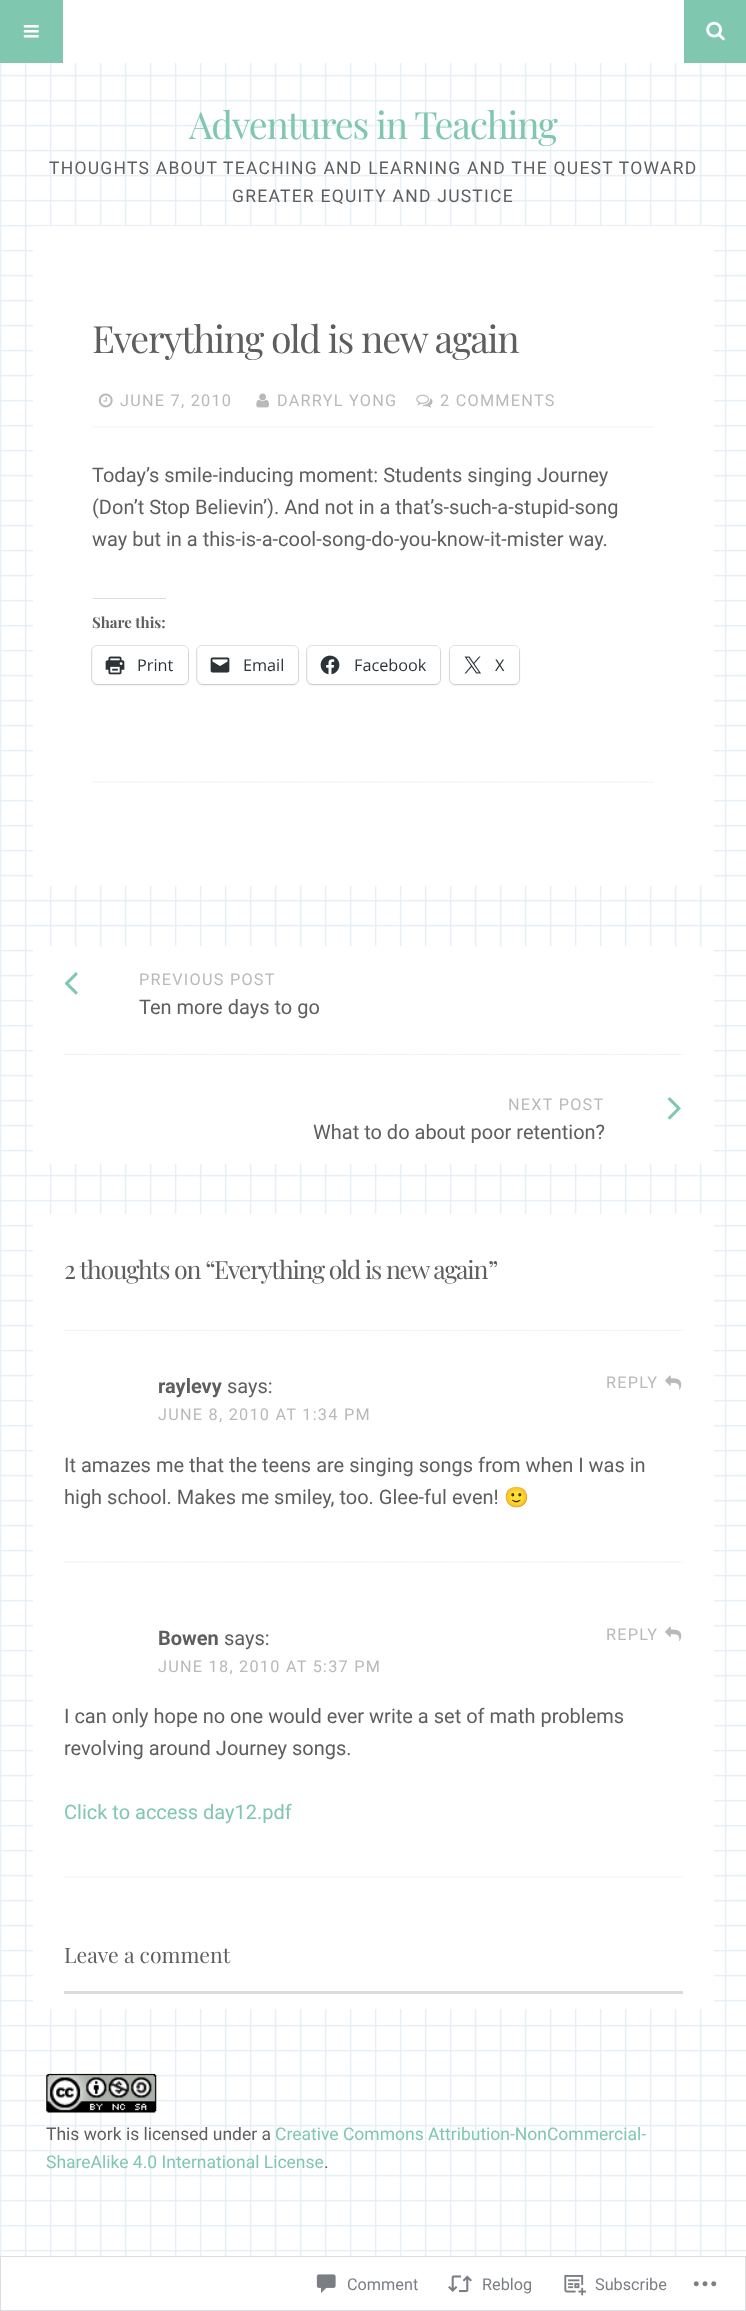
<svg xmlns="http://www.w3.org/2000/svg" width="746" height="2311">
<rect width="100%" height="100%" fill="#fff"/>
<image x="0" y="63" width="746" height="2248" href="media/1.png"/>
<rect width="63" height="63" fill="#7fc7af"/>
<image x="23" y="25" width="16" height="13" href="media/2.png"/>
<rect x="684" width="62" height="63" fill="#7fc7af"/>
<image x="706" y="21" width="19" height="20" href="media/3.png"/>
<text x="189" y="139" style="font-family:Playfair Display;font-size:37.5px;letter-spacing:-1.25px;fill:#7fc7af">Adventures in Teaching</text>
<text x="49" y="174" style="font-family:Roboto;font-size:17.5px;letter-spacing:1.25px;fill:#5e5e5e">THOUGHTS ABOUT TEACHING AND LEARNING AND THE QUEST TOWARD</text>
<text x="232" y="202" style="font-family:Roboto;font-size:17.5px;letter-spacing:1.25px;fill:#5e5e5e">GREATER EQUITY AND JUSTICE</text>
<rect x="33" y="226" width="681" height="660" fill="#fff"/>
<text x="92" y="353" style="font-family:Playfair Display;font-size:37.5px;letter-spacing:-1.25px;fill:#5e5e5e">Everything old is new again</text>
<path d="M92.5 427h561.5" fill="none" stroke="#e6e6e6" stroke-width="1.2" stroke-dasharray="1.25 1.25"/>
<image x="98" y="393" width="15" height="15" href="media/4.png"/>
<text x="120" y="406" style="font-family:Roboto;font-size:16.25px;letter-spacing:1.25px;fill:#b9b9b9">JUNE 7, 2010</text>
<image x="256" y="393" width="13" height="15" href="media/5.png"/>
<text x="277" y="406" style="font-family:Roboto;font-size:16.25px;letter-spacing:1.25px;fill:#b9b9b9">DARRYL YONG</text>
<image x="416" y="394" width="17" height="14" href="media/6.png"/>
<text x="440" y="406" style="font-family:Roboto;font-size:16.25px;letter-spacing:1.25px;fill:#b9b9b9">2 COMMENTS</text>
<text x="92" y="482" style="font-family:Roboto;font-size:20px;fill:#5e5e5e">Today’s smile-inducing moment: Students singing Journey</text>
<text x="92" y="514" style="font-family:Roboto;font-size:20px;fill:#5e5e5e">(Don’t Stop Believin’). And not in a that’s-such-a-stupid-song</text>
<text x="92" y="546" style="font-family:Roboto;font-size:20px;fill:#5e5e5e">way but in a this-is-a-cool-song-do-you-know-it-mister way.</text>
<rect x="93" y="598" width="73" height="1" fill="#dcdcde"/>
<text x="92" y="628" style="font-family:Playfair Display;font-size:15px;font-weight:bold;fill:#5e5e5e">Share this:</text>
<rect x="91.5" y="645.5" width="97" height="39" rx="5.5" fill="none" stroke="#e0e0e0"/>
<rect x="93" y="648" width="95" height="37" rx="5" fill="#0000001f" filter="blur(1px)"/>
<rect x="93" y="646" width="95" height="38" rx="5" fill="#fff"/>
<image x="105" y="656" width="20" height="19" href="media/7.png"/>
<text x="137" y="671" style="font-family:Open Sans;font-size:16.25px;fill:#2c3338">Print</text>
<rect x="196.5" y="645.5" width="102" height="39" rx="5.5" fill="none" stroke="#e0e0e0"/>
<rect x="198" y="648" width="100" height="37" rx="5" fill="#0000001f" filter="blur(1px)"/>
<rect x="198" y="646" width="100" height="38" rx="5" fill="#fff"/>
<image x="210" y="657" width="20" height="16" href="media/8.png"/>
<text x="243" y="671" style="font-family:Open Sans;font-size:16.25px;fill:#2c3338">Email</text>
<rect x="306.5" y="645.5" width="134" height="39" rx="5.5" fill="none" stroke="#e0e0e0"/>
<rect x="308" y="648" width="132" height="37" rx="5" fill="#0000001f" filter="blur(1px)"/>
<rect x="308" y="646" width="132" height="38" rx="5" fill="#fff"/>
<image x="320" y="655" width="20" height="20" href="media/9.png"/>
<text x="354" y="671" style="font-family:Open Sans;font-size:16.25px;fill:#2c3338">Facebook</text>
<rect x="449.5" y="645.5" width="70" height="39" rx="5.5" fill="none" stroke="#e0e0e0"/>
<rect x="450" y="648" width="69" height="37" rx="5" fill="#0000001f" filter="blur(1px)"/>
<rect x="450" y="646" width="69" height="38" rx="5" fill="#fff"/>
<image x="464" y="656" width="17" height="18" href="media/10.png"/>
<text x="495" y="671" style="font-family:Open Sans;font-size:16.25px;fill:#2c3338">X</text>
<path d="M92.5 782h561.5" fill="none" stroke="#e6e6e6" stroke-width="1.2" stroke-dasharray="1.25 1.25"/>
<rect x="33" y="946" width="681" height="218" fill="#fff"/>
<image x="64" y="972" width="14" height="23" href="media/11.png"/>
<text x="139" y="985" style="font-family:Roboto;font-size:16.25px;letter-spacing:1.25px;fill:#b9b9b9">PREVIOUS POST</text>
<text x="139" y="1014" style="font-family:Roboto;font-size:20px;fill:#5e5e5e">Ten more days to go</text>
<path d="M64 1054.5h618.5" fill="none" stroke="#e6e6e6" stroke-width="1.2" stroke-dasharray="1.25 1.25"/>
<text x="508" y="1110" style="font-family:Roboto;font-size:16.25px;letter-spacing:1.25px;fill:#b9b9b9">NEXT POST</text>
<text x="313" y="1139" style="font-family:Roboto;font-size:20px;fill:#5e5e5e">What to do about poor retention?</text>
<image x="667" y="1097" width="14" height="23" href="media/12.png"/>
<rect x="33" y="1214" width="681" height="795" fill="#fff"/>
<path d="M64 1330.5h618.5" fill="none" stroke="#e6e6e6" stroke-width="1.2" stroke-dasharray="1.25 1.25"/>
<text x="64" y="1279" style="font-family:Playfair Display;font-size:25px;letter-spacing:-1.25px;fill:#5e5e5e">2 thoughts on “</text>
<text x="214" y="1279" style="font-family:Playfair Display;font-size:25px;letter-spacing:-1.25px;fill:#5e5e5e">Everything old is new again</text>
<text x="488" y="1279" style="font-family:Playfair Display;font-size:25px;letter-spacing:-1.25px;fill:#5e5e5e">”</text>
<path d="M64 1562h618.5" fill="none" stroke="#e6e6e6" stroke-width="1.2" stroke-dasharray="1.25 1.25"/>
<text x="158" y="1393" style="font-family:Roboto;font-size:20px;font-weight:bold;fill:#5e5e5e">raylevy</text>
<text x="227" y="1393" style="font-family:Roboto;font-size:20px;fill:#5e5e5e">says:</text>
<text x="158" y="1420" style="font-family:Roboto;font-size:16.25px;letter-spacing:1.25px;fill:#b9b9b9">JUNE 8, 2010 AT 1:34 PM</text>
<text x="606" y="1388" style="font-family:Roboto;font-size:16.25px;letter-spacing:1.25px;fill:#b9b9b9">REPLY</text>
<image x="665" y="1375" width="17" height="15" href="media/13.png"/>
<text x="64" y="1472" style="font-family:Roboto;font-size:20px;fill:#5e5e5e">It amazes me that the teens are singing songs from when I was in</text>
<text x="64" y="1504" style="font-family:Roboto;font-size:20px;fill:#5e5e5e">high school. Makes me smiley, too. Glee-ful even!</text>
<text x="504" y="1504" style="font-family:Noto Color Emoji;font-size:20px;fill:#5e5e5e">🙂</text>
<path d="M64 1877h618.5" fill="none" stroke="#e6e6e6" stroke-width="1.2" stroke-dasharray="1.25 1.25"/>
<text x="158" y="1645" style="font-family:Roboto;font-size:20px;font-weight:bold;fill:#5e5e5e">Bowen</text>
<text x="224" y="1645" style="font-family:Roboto;font-size:20px;fill:#5e5e5e">says:</text>
<text x="158" y="1672" style="font-family:Roboto;font-size:16.25px;letter-spacing:1.25px;fill:#b9b9b9">JUNE 18, 2010 AT 5:37 PM</text>
<text x="606" y="1640" style="font-family:Roboto;font-size:16.25px;letter-spacing:1.25px;fill:#b9b9b9">REPLY</text>
<image x="665" y="1626" width="17" height="15" href="media/14.png"/>
<text x="64" y="1723" style="font-family:Roboto;font-size:20px;fill:#5e5e5e">I can only hope no one would ever write a set of math problems</text>
<text x="64" y="1755" style="font-family:Roboto;font-size:20px;fill:#5e5e5e">revolving around Journey songs.</text>
<text x="64" y="1819" style="font-family:Roboto;font-size:20px;fill:#7fc7af">Click to access day12.pdf</text>
<text x="64" y="1963" style="font-family:Playfair Display;font-size:21.25px;fill:#5e5e5e">Leave a comment</text>
<rect x="64" y="1991" width="619" height="3" fill="#dcdcde"/>
<image x="46" y="2073" width="111" height="40" href="media/15.png"/>
<text x="46" y="2140" style="font-family:Roboto;font-size:17.5px;fill:#5e5e5e">This work is licensed under a</text>
<text x="275" y="2140" style="font-family:Roboto;font-size:17.5px;fill:#7fc7af">Creative Commons Attribution-NonCommercial-</text>
<text x="46" y="2168" style="font-family:Roboto;font-size:17.5px;fill:#7fc7af">ShareAlike 4.0 International License</text>
<text x="324" y="2168" style="font-family:Roboto;font-size:17.5px;fill:#5e5e5e">.</text>
<rect x="249" y="2256" width="451" height="1" fill="#0000001a"/>
<rect y="2256" width="746" height="55" fill="#fffffffa"/>
<rect x="0.5" y="2256.5" width="745" height="54" fill="none" stroke="#dcdcdefa"/>
<image x="316" y="2274" width="20" height="19" href="media/16.png"/>
<text x="347" y="2290" style="font-family:Roboto;font-size:16.25px;fill:#7b7f84">Comment</text>
<image x="448" y="2275" width="24" height="18" href="media/17.png"/>
<text x="482" y="2290" style="font-family:Roboto;font-size:16.25px;fill:#7b7f84">Reblog</text>
<image x="564" y="2275" width="22" height="21" href="media/18.png"/>
<text x="595" y="2290" style="font-family:Roboto;font-size:16.25px;fill:#7b7f84">Subscribe</text>
<image x="693" y="2281" width="24" height="6" href="media/19.png"/>
</svg>
